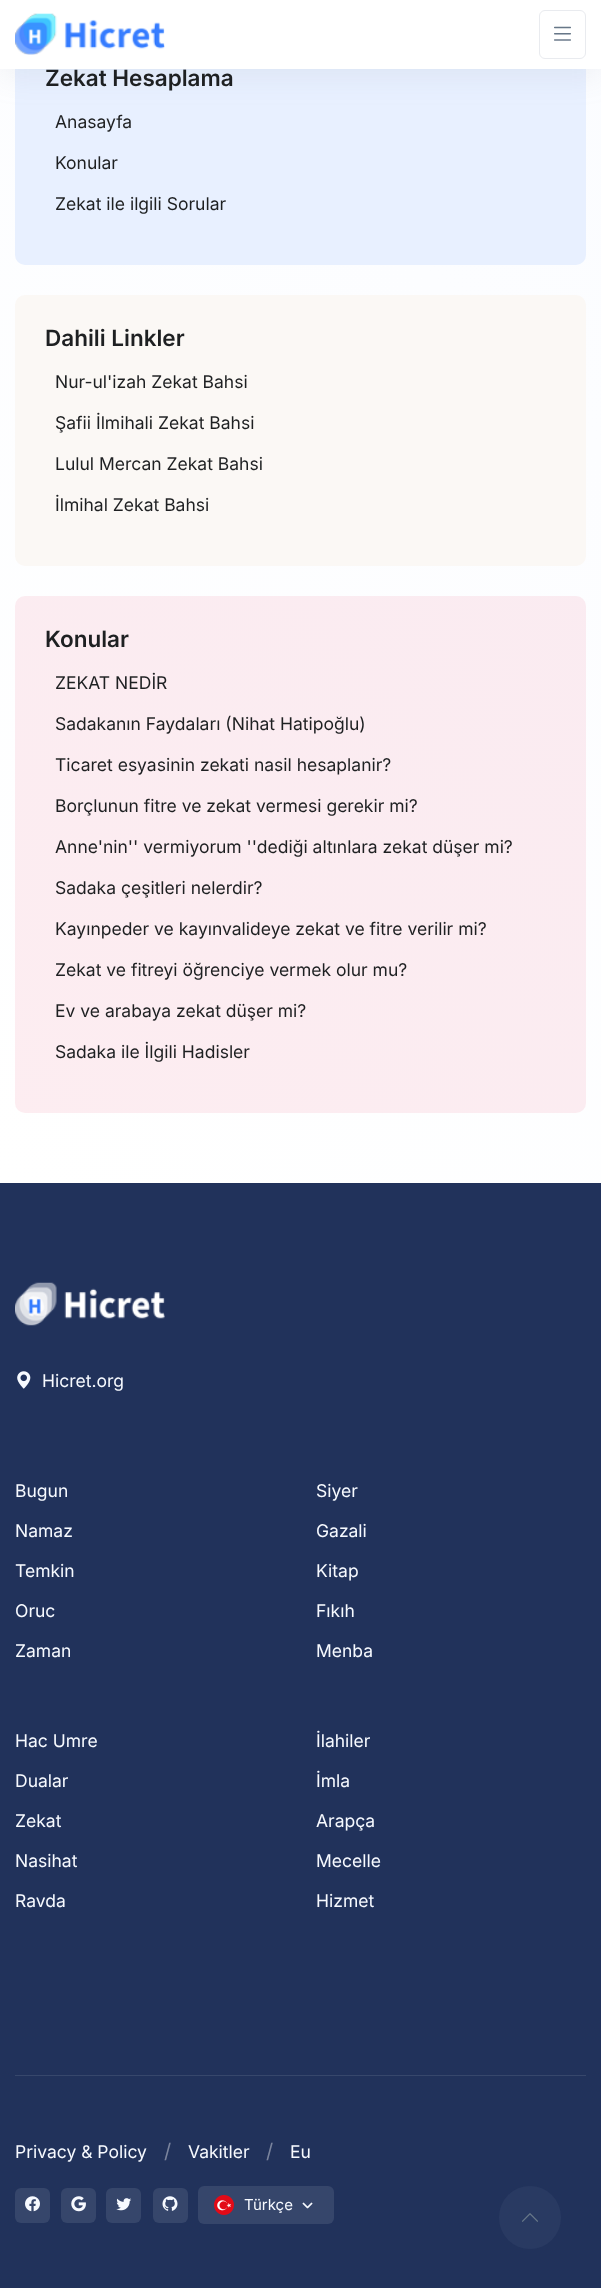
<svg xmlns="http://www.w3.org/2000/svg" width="601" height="2288">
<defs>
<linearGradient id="g1" gradientUnits="userSpaceOnUse" x1="-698" y1="484" x2="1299" y2="-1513"><stop offset="0" stop-color="#fff"/><stop offset="1" stop-color="#f6f9ff"/></linearGradient>
</defs>
<rect width="100%" height="100%" fill="#21325b"/>
<rect y="69" width="601" height="1114" fill="url(#g1)"/>
<rect x="15" y="35" width="571" height="230" rx="10" fill="#e8f0ff"/>
<rect y="8" width="601" height="68" fill="#8c98a41f" filter="blur(15px)"/>
<rect width="601" height="69" fill="#fff"/>
<image x="15" y="13" width="150" height="42" href="media/1.png"/>
<rect x="539.5" y="10.5" width="46" height="48" rx="5.5" fill="none" stroke="#e9ebef"/>
<image x="554" y="26" width="17" height="15" href="media/2.png"/>
<text x="45" y="86" style="font-family:Inter;font-size:22.5px;font-weight:600;fill:#1e2022">Zekat Hesaplama</text>
<text x="55" y="128" style="font-family:Inter;font-size:17.5px;fill:#1e2022">Anasayfa</text>
<text x="55" y="169" style="font-family:Inter;font-size:17.5px;fill:#1e2022">Konular</text>
<text x="55" y="210" style="font-family:Inter;font-size:17.5px;fill:#1e2022">Zekat ile ilgili Sorular</text>
<rect x="15" y="295" width="571" height="271" rx="10" fill="#fbf8f5"/>
<text x="45" y="346" style="font-family:Inter;font-size:22.5px;font-weight:600;fill:#1e2022">Dahili Linkler</text>
<text x="55" y="388" style="font-family:Inter;font-size:17.5px;fill:#1e2022">Nur-ul'izah Zekat Bahsi</text>
<text x="55" y="429" style="font-family:Inter;font-size:17.5px;fill:#1e2022">Şafii İlmihali Zekat Bahsi</text>
<text x="55" y="470" style="font-family:Inter;font-size:17.5px;fill:#1e2022">Lulul Mercan Zekat Bahsi</text>
<text x="55" y="511" style="font-family:Inter;font-size:17.5px;fill:#1e2022">İlmihal Zekat Bahsi</text>
<rect x="15" y="596" width="571" height="517" rx="10" fill="#ed4c781a"/>
<text x="45" y="647" style="font-family:Inter;font-size:22.5px;font-weight:600;fill:#1e2022">Konular</text>
<text x="55" y="689" style="font-family:Inter;font-size:17.5px;fill:#1e2022">ZEKAT NEDİR</text>
<text x="55" y="730" style="font-family:Inter;font-size:17.5px;fill:#1e2022">Sadakanın Faydaları (Nihat Hatipoğlu)</text>
<text x="55" y="771" style="font-family:Inter;font-size:17.5px;fill:#1e2022">Ticaret esyasinin zekati nasil hesaplanir?</text>
<text x="55" y="812" style="font-family:Inter;font-size:17.5px;fill:#1e2022">Borçlunun fitre ve zekat vermesi gerekir mi?</text>
<text x="55" y="853" style="font-family:Inter;font-size:17.5px;fill:#1e2022">Anne'nin'' vermiyorum ''dediği altınlara zekat düşer mi?</text>
<text x="55" y="894" style="font-family:Inter;font-size:17.5px;fill:#1e2022">Sadaka çeşitleri nelerdir?</text>
<text x="55" y="935" style="font-family:Inter;font-size:17.5px;fill:#1e2022">Kayınpeder ve kayınvalideye zekat ve fitre verilir mi?</text>
<text x="55" y="976" style="font-family:Inter;font-size:17.5px;fill:#1e2022">Zekat ve fitreyi öğrenciye vermek olur mu?</text>
<text x="55" y="1017" style="font-family:Inter;font-size:17.5px;fill:#1e2022">Ev ve arabaya zekat düşer mi?</text>
<text x="55" y="1058" style="font-family:Inter;font-size:17.5px;fill:#1e2022">Sadaka ile İlgili Hadisler</text>
<image x="15" y="1282" width="150" height="44" href="media/3.png"/>
<image x="17" y="1371" width="14" height="18" href="media/4.png"/>
<text x="42" y="1387" style="font-family:Inter;font-size:17.5px;fill:#f7faff">Hicret.org</text>
<text x="15" y="1497" style="font-family:Inter;font-size:17.5px;fill:#f7faff">Bugun</text>
<text x="15" y="1537" style="font-family:Inter;font-size:17.5px;fill:#f7faff">Namaz</text>
<text x="15" y="1577" style="font-family:Inter;font-size:17.5px;fill:#f7faff">Temkin</text>
<text x="15" y="1617" style="font-family:Inter;font-size:17.5px;fill:#f7faff">Oruc</text>
<text x="15" y="1657" style="font-family:Inter;font-size:17.5px;fill:#f7faff">Zaman</text>
<text x="316" y="1497" style="font-family:Inter;font-size:17.5px;fill:#f7faff">Siyer</text>
<text x="316" y="1537" style="font-family:Inter;font-size:17.5px;fill:#f7faff">Gazali</text>
<text x="316" y="1577" style="font-family:Inter;font-size:17.5px;fill:#f7faff">Kitap</text>
<text x="316" y="1617" style="font-family:Inter;font-size:17.5px;fill:#f7faff">Fıkıh</text>
<text x="316" y="1657" style="font-family:Inter;font-size:17.5px;fill:#f7faff">Menba</text>
<text x="15" y="1747" style="font-family:Inter;font-size:17.5px;fill:#f7faff">Hac Umre</text>
<text x="15" y="1787" style="font-family:Inter;font-size:17.5px;fill:#f7faff">Dualar</text>
<text x="15" y="1827" style="font-family:Inter;font-size:17.5px;fill:#f7faff">Zekat</text>
<text x="15" y="1867" style="font-family:Inter;font-size:17.5px;fill:#f7faff">Nasihat</text>
<text x="15" y="1907" style="font-family:Inter;font-size:17.5px;fill:#f7faff">Ravda</text>
<text x="316" y="1747" style="font-family:Inter;font-size:17.5px;fill:#f7faff">İlahiler</text>
<text x="316" y="1787" style="font-family:Inter;font-size:17.5px;fill:#f7faff">İmla</text>
<text x="316" y="1827" style="font-family:Inter;font-size:17.5px;fill:#f7faff">Arapça</text>
<text x="316" y="1867" style="font-family:Inter;font-size:17.5px;fill:#f7faff">Mecelle</text>
<text x="316" y="1907" style="font-family:Inter;font-size:17.5px;fill:#f7faff">Hizmet</text>
<rect x="15" y="2075" width="571" height="1" fill="#37476b"/>
<text x="15" y="2158" style="font-family:Inter;font-size:17.5px;fill:#f7faff">Privacy &amp; Policy</text>
<text x="164" y="2158" style="font-family:Inter;font-size:20px;fill:#7a849d">/</text>
<text x="188" y="2158" style="font-family:Inter;font-size:17.5px;fill:#f7faff">Vakitler</text>
<text x="266" y="2158" style="font-family:Inter;font-size:20px;fill:#7a849d">/</text>
<text x="290" y="2158" style="font-family:Inter;font-size:17.5px;fill:#f7faff">Eu</text>
<rect x="15" y="2188" width="35" height="35" rx="6" fill="#36466b"/>
<image x="25" y="2196" width="15" height="16" href="media/5.png"/>
<rect x="61" y="2188" width="35" height="35" rx="6" fill="#36466b"/>
<image x="71" y="2196" width="15" height="16" href="media/6.png"/>
<rect x="106" y="2188" width="35" height="35" rx="6" fill="#36466b"/>
<image x="116" y="2198" width="16" height="13" href="media/7.png"/>
<rect x="153" y="2188" width="35" height="35" rx="6" fill="#36466b"/>
<image x="162" y="2196" width="16" height="15" href="media/8.png"/>
<rect x="198" y="2186" width="136" height="38" rx="6" fill="#36466b"/>
<image x="214" y="2195" width="20" height="20" href="media/9.png"/>
<text x="244" y="2210" style="font-family:Inter;font-size:15px;fill:#f7faff">Türkçe</text>
<image x="302" y="2202" width="11" height="7" href="media/10.png"/>
<rect x="499" y="2186" width="62" height="63" rx="31" fill="#293a62"/>
<image x="522" y="2213" width="16" height="9" href="media/11.png"/>
</svg>
